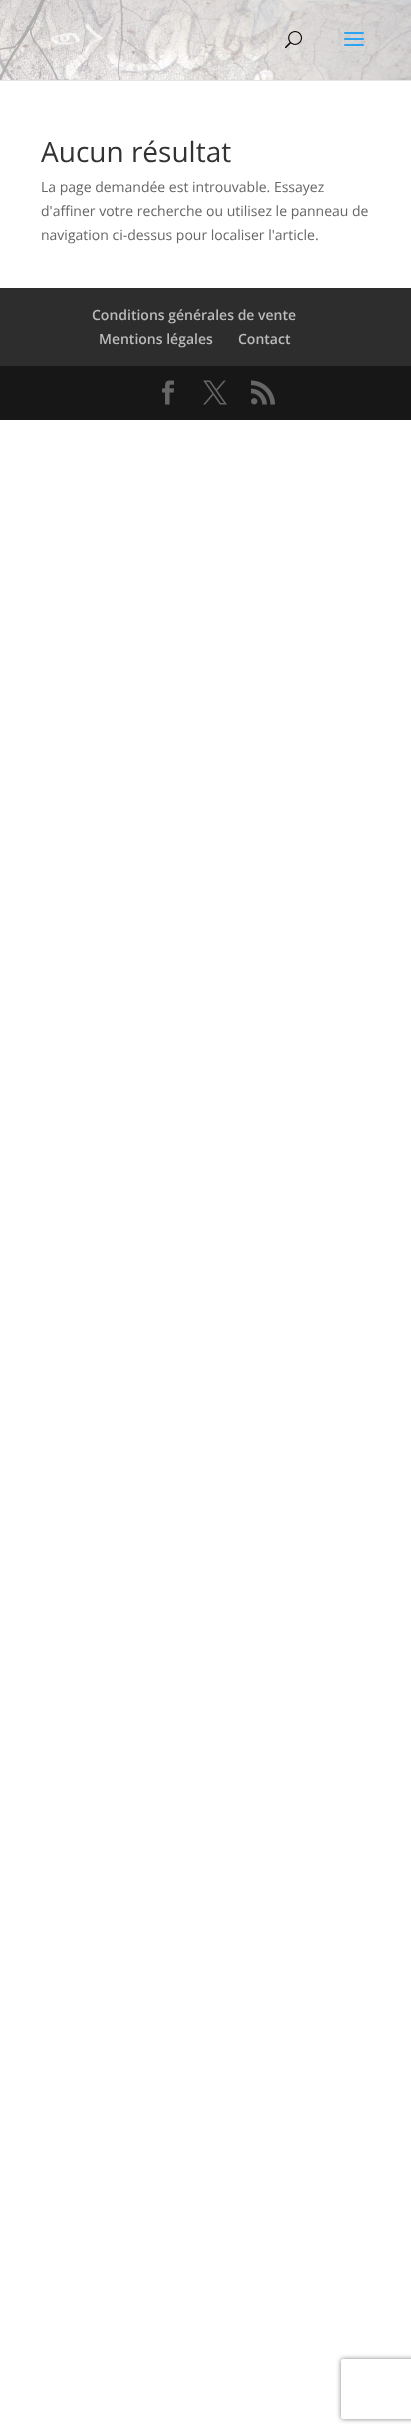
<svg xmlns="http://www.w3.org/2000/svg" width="411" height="2433">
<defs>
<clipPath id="clip1"><path d="M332 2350h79v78h-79zm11 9h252c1 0 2 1 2 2v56c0 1-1 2-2 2h-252c-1 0-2-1-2-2v-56c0-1 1-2 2-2z" clip-rule="evenodd"/></clipPath>
</defs>
<rect width="100%" height="100%" fill="#fff"/>
<rect y="80" width="411" height="1" fill="#e6e6e6"/>
<image x="0" y="0" width="411" height="80" href="media/1.png"/>
<image x="50" y="23" width="54" height="31" href="media/2.png"/>
<image x="285" y="31" width="17" height="18" href="media/3.png"/>
<image x="344" y="32" width="20" height="14" href="media/4.png"/>
<text x="41" y="162" style="font-family:Open Sans;font-size:28px;fill:#333">Aucun résultat</text>
<text x="41" y="192" style="font-family:Open Sans;font-size:14px;fill:#666">La page demandée est introuvable. Essayez</text>
<text x="41" y="216" style="font-family:Open Sans;font-size:14px;fill:#666">d'affiner votre recherche ou utilisez le panneau de</text>
<text x="41" y="240" style="font-family:Open Sans;font-size:14px;fill:#666">navigation ci-dessus pour localiser l'article.</text>
<rect y="288" width="411" height="78" fill="#2d2d2d"/>
<text x="92" y="320" style="font-family:Open Sans;font-size:14px;font-weight:600;fill:#bbb">Conditions générales de vente</text>
<text x="99" y="344" style="font-family:Open Sans;font-size:14px;font-weight:600;fill:#bbb">Mentions légales</text>
<text x="238" y="344" style="font-family:Open Sans;font-size:14px;font-weight:600;fill:#bbb">Contact</text>
<rect y="366" width="411" height="54" fill="#171717"/>
<image x="162" y="380" width="12" height="25" href="media/5.png"/>
<image x="203" y="380" width="24" height="25" href="media/6.png"/>
<image x="251" y="380" width="24" height="25" href="media/7.png"/>
<g clip-path="url(#clip1)">
<rect x="341" y="2359" width="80" height="60" rx="2" fill="#808080" filter="blur(2.5px)"/>
</g>
</svg>
